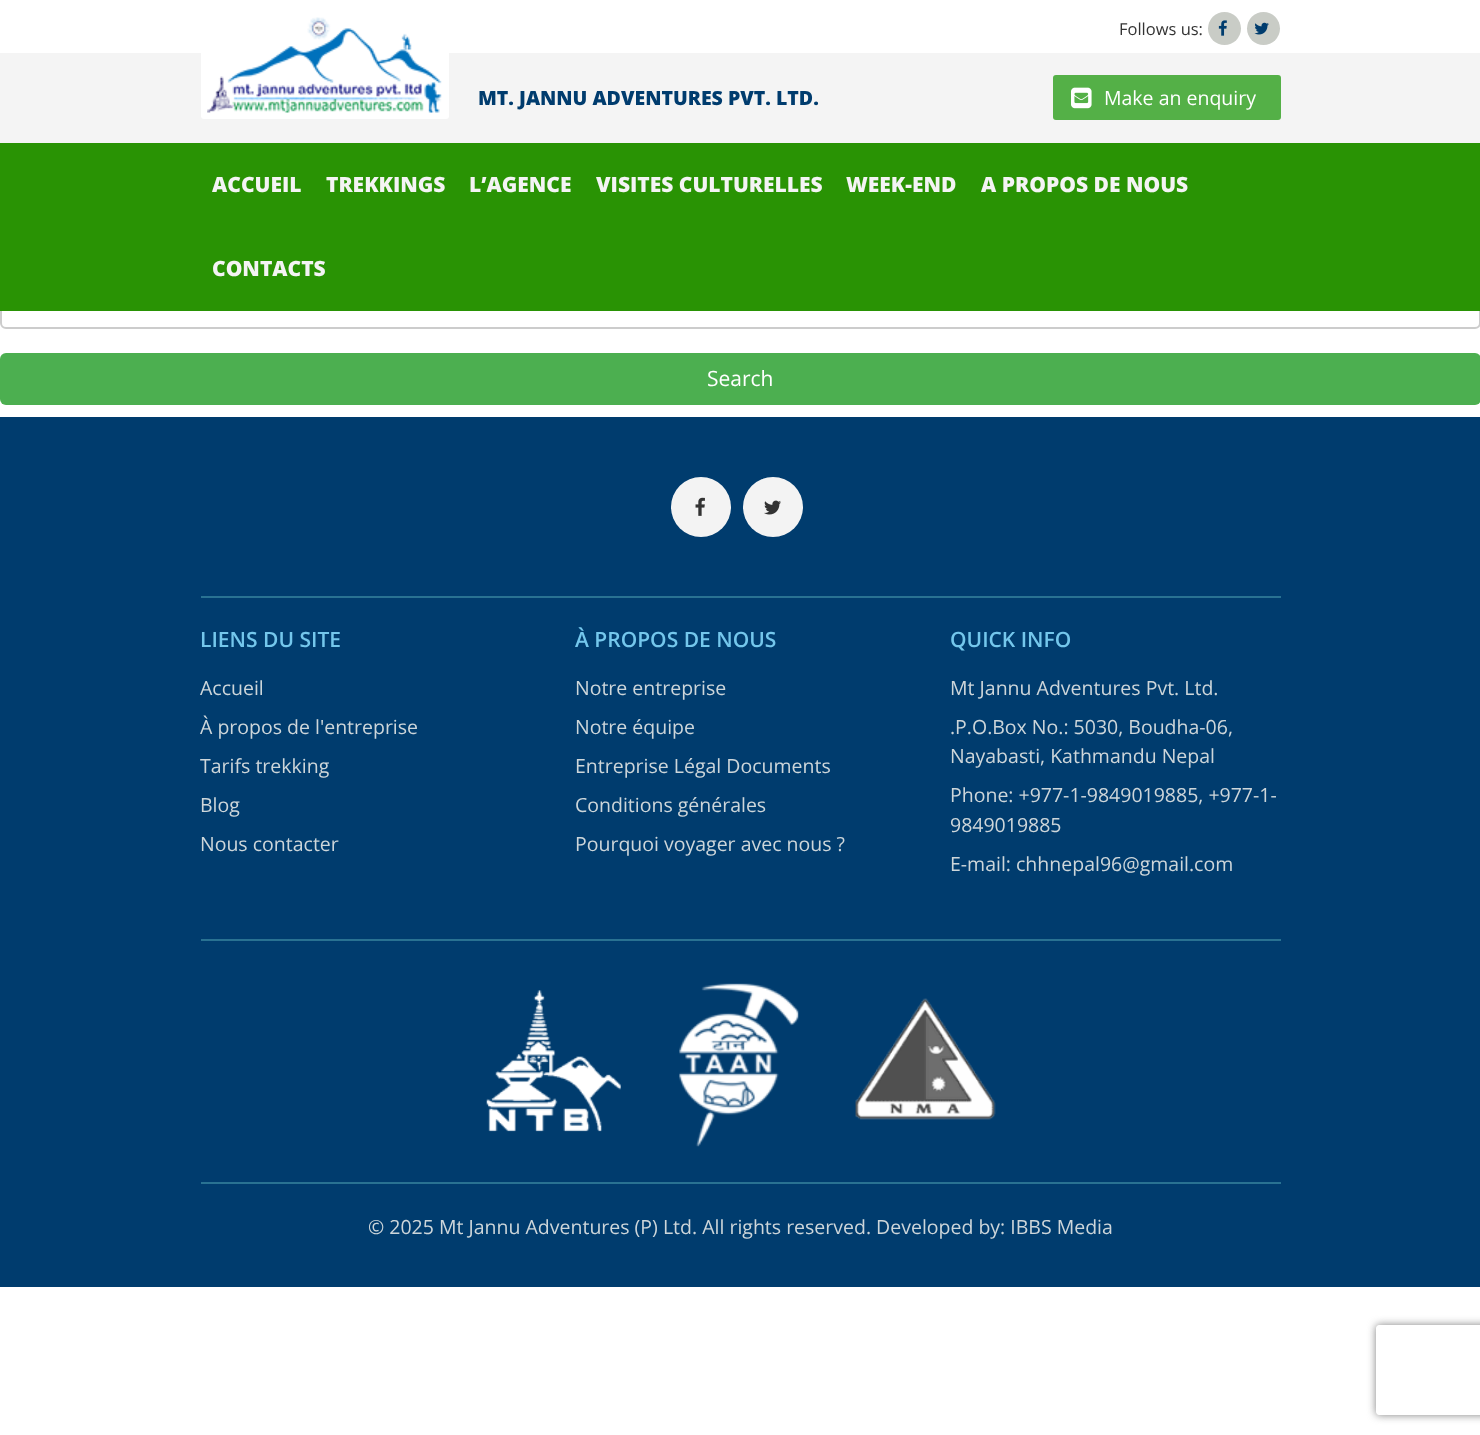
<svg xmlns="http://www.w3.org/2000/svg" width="1480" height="1435">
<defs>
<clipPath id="clip1"><path d="M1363 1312h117v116h-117zm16 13h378c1.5 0 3 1.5 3 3v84c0 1.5-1.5 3-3 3h-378c-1.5 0-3-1.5-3-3v-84c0-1.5 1.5-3 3-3z" clip-rule="evenodd"/></clipPath>
</defs>
<rect width="100%" height="100%" fill="#fff"/>
<text x="1119" y="35" style="font-family:Open Sans;font-size:16.5px;fill:#333">Follows us:</text>
<circle cx="1224.5" cy="28.5" r="16.5" fill="#c9ccc6"/>
<image x="1218" y="20" width="9" height="16" href="media/1.png"/>
<circle cx="1263.5" cy="28.5" r="16.5" fill="#c9ccc6"/>
<image x="1254" y="22" width="15" height="13" href="media/2.png"/>
<rect y="53" width="1480" height="90" fill="#f4f4f4"/>
<rect x="201" y="11" width="248" height="108" rx="3" fill="#fff"/>
<image x="207" y="17" width="235" height="96" href="media/3.png"/>
<text x="478" y="105" style="font-family:Open Sans;font-size:19.5px;font-weight:800;fill:#003c6e">MT. JANNU ADVENTURES PVT. LTD.</text>
<rect x="1053" y="75" width="228" height="45" rx="3" fill="#54b047"/>
<image x="1071" y="87" width="21" height="22" href="media/4.png"/>
<text x="1104" y="105" style="font-family:Open Sans;font-size:19.5px;fill:#fff">Make an enquiry</text>
<rect x="1" y="274" width="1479" height="54" rx="5" fill="none" stroke="#ccc" stroke-width="2"/>
<rect y="143" width="1480" height="168" fill="#299304"/>
<text x="212" y="192" style="font-family:Open Sans;font-size:21px;font-weight:800;fill:#f4f4f4">ACCUEIL</text>
<text x="326" y="192" style="font-family:Open Sans;font-size:21px;font-weight:800;fill:#f4f4f4">TREKKINGS</text>
<text x="469" y="192" style="font-family:Open Sans;font-size:21px;font-weight:800;fill:#f4f4f4">L’AGENCE</text>
<text x="596" y="192" style="font-family:Open Sans;font-size:21px;font-weight:800;fill:#f4f4f4">VISITES CULTURELLES</text>
<text x="846" y="192" style="font-family:Open Sans;font-size:21px;font-weight:800;fill:#f4f4f4">WEEK-END</text>
<text x="981" y="192" style="font-family:Open Sans;font-size:21px;font-weight:800;fill:#f4f4f4">A PROPOS DE NOUS</text>
<text x="212" y="276" style="font-family:Open Sans;font-size:21px;font-weight:800;fill:#f4f4f4">CONTACTS</text>
<rect y="353" width="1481" height="52" rx="6" fill="#4caf50"/>
<text x="707" y="386" style="font-family:Open Sans;font-size:21px;fill:#fff">Search</text>
<rect y="417" width="1480" height="870" fill="#003c6e"/>
<rect x="201" y="596" width="1080" height="2" fill="#297292"/>
<circle cx="701" cy="507" r="30" fill="#f3f3f3"/>
<image x="695" y="497" width="10" height="19" href="media/5.png"/>
<circle cx="773" cy="507" r="30" fill="#f3f3f3"/>
<image x="764" y="500" width="17" height="15" href="media/6.png"/>
<rect x="201" y="939" width="1080" height="2" fill="#297292"/>
<text x="200" y="647" style="font-family:Open Sans;font-size:21px;font-weight:600;fill:#74c7ec">LIENS DU SITE</text>
<text x="200" y="695" style="font-family:Open Sans;font-size:19.5px;fill:#cdd6da">Accueil</text>
<text x="200" y="734" style="font-family:Open Sans;font-size:19.5px;fill:#cdd6da">À propos de l'entreprise</text>
<text x="200" y="773" style="font-family:Open Sans;font-size:19.5px;fill:#cdd6da">Tarifs trekking</text>
<text x="200" y="812" style="font-family:Open Sans;font-size:19.5px;fill:#cdd6da">Blog</text>
<text x="200" y="851" style="font-family:Open Sans;font-size:19.5px;fill:#cdd6da">Nous contacter</text>
<text x="575" y="647" style="font-family:Open Sans;font-size:21px;font-weight:600;fill:#74c7ec">À PROPOS DE NOUS</text>
<text x="575" y="695" style="font-family:Open Sans;font-size:19.5px;fill:#cdd6da">Notre entreprise</text>
<text x="575" y="734" style="font-family:Open Sans;font-size:19.5px;fill:#cdd6da">Notre équipe</text>
<text x="575" y="773" style="font-family:Open Sans;font-size:19.5px;fill:#cdd6da">Entreprise Légal Documents</text>
<text x="575" y="812" style="font-family:Open Sans;font-size:19.5px;fill:#cdd6da">Conditions générales</text>
<text x="575" y="851" style="font-family:Open Sans;font-size:19.5px;fill:#cdd6da">Pourquoi voyager avec nous ?</text>
<text x="950" y="647" style="font-family:Open Sans;font-size:21px;font-weight:600;fill:#74c7ec">QUICK INFO</text>
<text x="950" y="695" style="font-family:Open Sans;font-size:19.5px;fill:#cdd6da">Mt Jannu Adventures Pvt. Ltd.</text>
<text x="950" y="734" style="font-family:Open Sans;font-size:19.5px;fill:#cdd6da">.P.O.Box No.: 5030, Boudha-06,</text>
<text x="950" y="763" style="font-family:Open Sans;font-size:19.5px;fill:#cdd6da">Nayabasti, Kathmandu Nepal</text>
<text x="950" y="802" style="font-family:Open Sans;font-size:19.5px;fill:#cdd6da">Phone: +977-1-9849019885, +977-1-</text>
<text x="950" y="832" style="font-family:Open Sans;font-size:19.5px;fill:#cdd6da">9849019885</text>
<text x="950" y="871" style="font-family:Open Sans;font-size:19.5px;fill:#cdd6da">E-mail: chhnepal96@gmail.com</text>
<rect x="201" y="1182" width="1080" height="2" fill="#297292"/>
<image x="486" y="990" width="135" height="142" href="media/7.png"/>
<image x="679" y="983" width="120" height="164" href="media/8.png"/>
<image x="855" y="998" width="141" height="122" href="media/9.png"/>
<text x="368" y="1234" style="font-family:Open Sans;font-size:19.5px;fill:#cdd6da">© 2025 Mt Jannu Adventures (P) Ltd. All rights reserved. Developed by: IBBS Media</text>
<g clip-path="url(#clip1)">
<rect x="1376" y="1325" width="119" height="90" rx="3" fill="#808080" filter="blur(4px)"/>
</g>
</svg>
